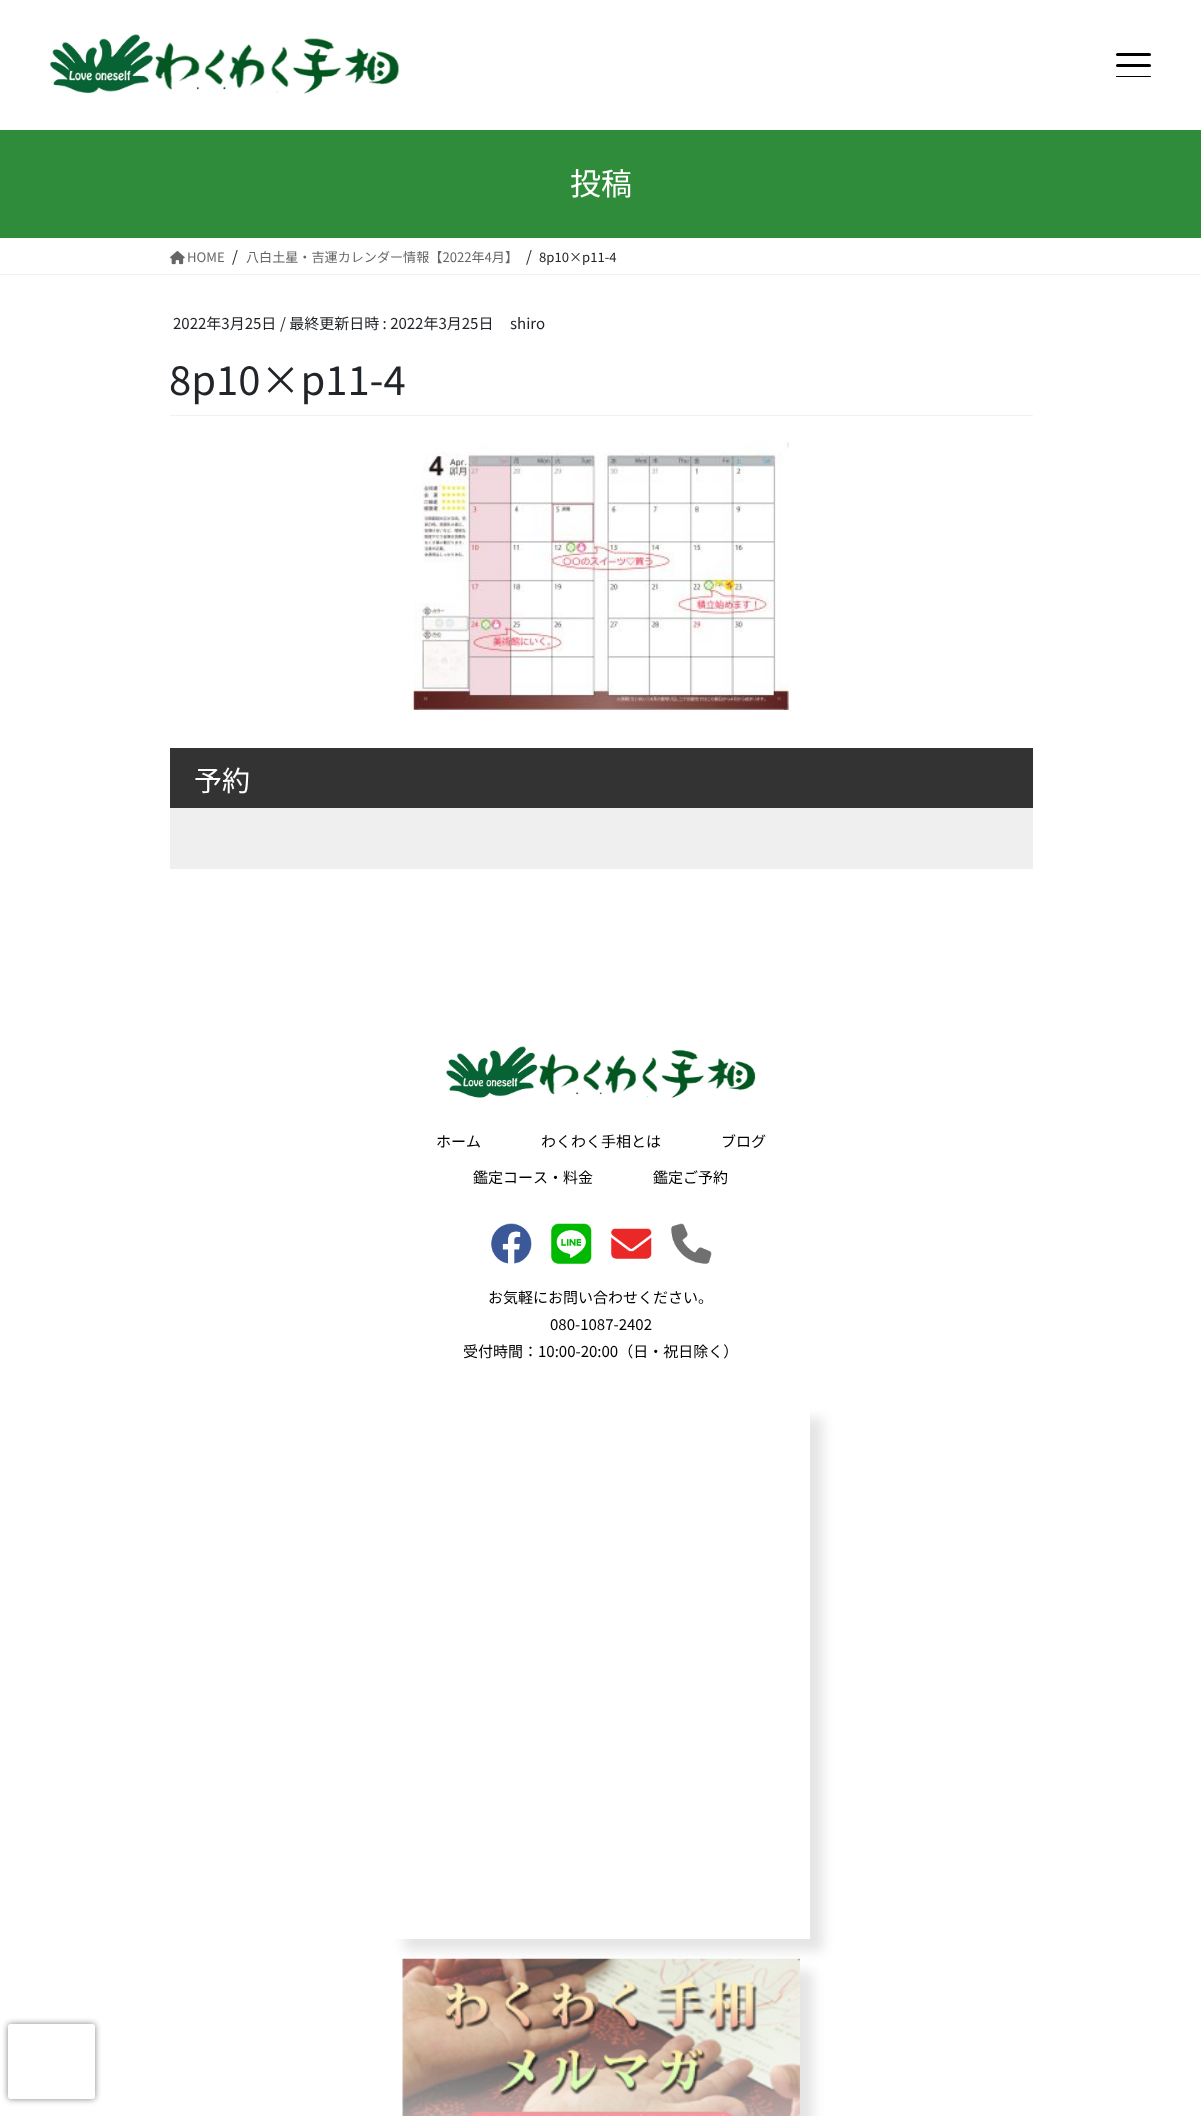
<svg xmlns="http://www.w3.org/2000/svg" width="1201" height="2116">
<style>*{font-kerning:none!important;font-variant-ligatures:none!important}</style>
<defs>
<clipPath id="clip1"><path d="M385 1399h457v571h-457zm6 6h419v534h-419z" clip-rule="evenodd"/></clipPath>
<clipPath id="clip2"><path d="M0 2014h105v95h-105zm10.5 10h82c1.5 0 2.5 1 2.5 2.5v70c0 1.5-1 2.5-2.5 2.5h-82c-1.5 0-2.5-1-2.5-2.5v-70c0-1.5 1-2.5 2.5-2.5z" clip-rule="evenodd"/></clipPath>
</defs>
<rect width="100%" height="100%" fill="#fff"/>
<image x="50" y="34" width="350" height="60" href="media/1.png"/>
<rect x="1116" y="53" width="35" height="3" rx="1.5" fill="#000"/>
<rect x="1116" y="64" width="35" height="3" rx="1.5" fill="#000"/>
<rect x="1116" y="76" width="35" height="1" rx="0.5" fill="#000"/>
<rect y="130" width="1201" height="108" fill="#2f8c3a"/>
<text x="570" y="195" style="font-family:Noto Sans JP;font-size:31px;font-weight:100;fill:#fff">投稿</text>
<rect y="274" width="1201" height="1" fill="#f2f2f2"/>
<image x="170" y="251" width="15" height="14" href="media/2.png"/>
<text x="187" y="262" style="font-family:Noto Sans JP;font-size:13.1px;font-weight:100;fill:#666">HOME</text>
<text x="232" y="262" style="font-family:Noto Sans JP;font-size:15px;font-weight:100;fill:#212529">/</text>
<text x="246" y="262" style="font-family:Noto Sans JP;font-size:13.1px;font-weight:100;fill:#666">八白土星・吉運カレンダー情報【2022年4月】</text>
<text x="526" y="262" style="font-family:Noto Sans JP;font-size:15px;font-weight:100;fill:#212529">/</text>
<text x="539" y="262" style="font-family:Noto Sans JP;font-size:13.1px;font-weight:100;fill:#212529">8p10×p11-4</text>
<rect x="170" y="415" width="863" height="1" fill="#f2f2f2"/>
<text x="173" y="329" style="font-family:Noto Sans JP;font-size:15px;font-weight:100;fill:#212529">2022年3月25日</text>
<text x="280" y="329" style="font-family:Noto Sans JP;font-size:15px;font-weight:100;fill:#212529">/ 最終更新日時 : 2022年3月25日</text>
<text x="510" y="329" style="font-family:Noto Sans JP;font-size:15px;font-weight:100;fill:#212529">shiro</text>
<text x="169" y="395" style="font-family:Noto Sans JP;font-size:40px;font-weight:100;fill:#212529">8p10×p11-4</text>
<image x="413" y="442" width="376" height="268" href="media/3.png"/>
<rect x="170" y="808" width="863" height="61" fill="#efefef"/>
<rect x="170" y="748" width="863" height="60" fill="#333"/>
<text x="194" y="791" style="font-family:Noto Sans JP;font-size:28px;font-weight:100;fill:#fff">予約</text>
<image x="446" y="1046" width="310" height="53" href="media/4.png"/>
<text x="436" y="1147" style="font-family:Noto Sans JP;font-size:15px;font-weight:100;fill:#000">ホーム</text>
<text x="541" y="1147" style="font-family:Noto Sans JP;font-size:15px;font-weight:100;fill:#000">わくわく手相とは</text>
<text x="721" y="1147" style="font-family:Noto Sans JP;font-size:15px;font-weight:100;fill:#000">ブログ</text>
<text x="473" y="1183" style="font-family:Noto Sans JP;font-size:15px;font-weight:100;fill:#000">鑑定コース・料金</text>
<text x="653" y="1183" style="font-family:Noto Sans JP;font-size:15px;font-weight:100;fill:#000">鑑定ご予約</text>
<image x="491" y="1223" width="41" height="41" href="media/5.png"/>
<image x="551" y="1223" width="41" height="41" href="media/6.png"/>
<image x="611" y="1228" width="41" height="31" href="media/7.png"/>
<image x="671" y="1223" width="41" height="41" href="media/8.png"/>
<text x="488" y="1303" style="font-family:Noto Sans JP;font-size:15px;font-weight:100;fill:#000">お気軽にお問い合わせください。</text>
<text x="550" y="1330" style="font-family:Noto Sans JP;font-size:15px;font-weight:100;fill:#000">080-1087-2402</text>
<text x="463" y="1357" style="font-family:Noto Sans JP;font-size:15px;font-weight:100;fill:#000">受付時間：10:00-20:00（日・祝日除く）</text>
<rect x="415" y="1971" width="398" height="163" fill="#0000001a" filter="blur(6px)"/>
<image x="402" y="1958" width="398" height="158" href="media/9.png"/>
<g clip-path="url(#clip1)">
<rect x="404" y="1418" width="419" height="533" fill="#0000001a" filter="blur(6px)"/>
</g>
<g clip-path="url(#clip2)">
<rect x="8" y="2024" width="87" height="75" rx="2.5" fill="#808080" filter="blur(3px)"/>
</g>
</svg>
